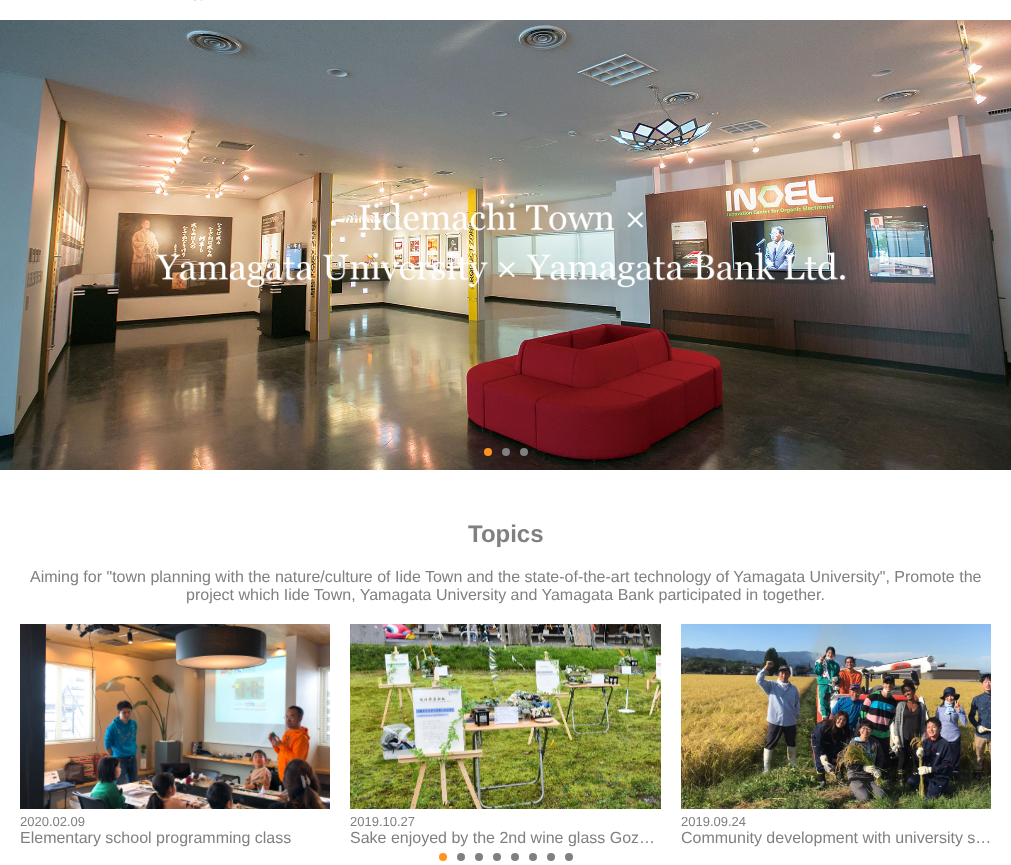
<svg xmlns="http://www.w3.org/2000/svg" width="1011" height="865">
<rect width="100%" height="100%" fill="#fff"/>
<image x="194" y="0" width="9" height="1" href="media/1.png"/>
<image x="0" y="20" width="1011" height="450" href="media/2.png"/>
<image x="156" y="202" width="690" height="86" href="media/3.png"/>
<circle cx="488" cy="452" r="4" fill="#ff931e"/>
<circle cx="506" cy="452" r="4" fill="#808080"/>
<circle cx="524" cy="452" r="4" fill="#808080"/>
<text x="468" y="542" style="font-family:Liberation Sans;font-size:24px;font-weight:bold;fill:#808080">Topics</text>
<text x="30" y="582" style="font-family:Liberation Sans;font-size:16px;fill:#808080">Aiming for "town planning with the nature/culture of Iide Town and the state-of-the-art technology of Yamagata University", Promote the</text>
<text x="186" y="600" style="font-family:Liberation Sans;font-size:16px;fill:#808080">project which Iide Town, Yamagata University and Yamagata Bank participated in together.</text>
<image x="20" y="624" width="310" height="185" href="media/4.png"/>
<text x="20" y="826" style="font-family:Liberation Sans;font-size:13px;fill:#808080">2020.02.09</text>
<text x="20" y="843" style="font-family:Liberation Sans;font-size:16px;fill:#808080">Elementary school programming class</text>
<image x="350" y="624" width="311" height="185" href="media/5.png"/>
<text x="350" y="826" style="font-family:Liberation Sans;font-size:13px;fill:#808080">2019.10.27</text>
<text x="350" y="843" style="font-family:Liberation Sans;font-size:16px;fill:#808080">Sake enjoyed by the 2nd wine glass Goz…</text>
<image x="681" y="624" width="310" height="185" href="media/6.png"/>
<text x="681" y="826" style="font-family:Liberation Sans;font-size:13px;fill:#808080">2019.09.24</text>
<text x="681" y="843" style="font-family:Liberation Sans;font-size:16px;fill:#808080">Community development with university s…</text>
<circle cx="443" cy="857" r="4" fill="#ff931e"/>
<circle cx="461" cy="857" r="4" fill="#808080"/>
<circle cx="479" cy="857" r="4" fill="#808080"/>
<circle cx="497" cy="857" r="4" fill="#808080"/>
<circle cx="515" cy="857" r="4" fill="#808080"/>
<circle cx="533" cy="857" r="4" fill="#808080"/>
<circle cx="551" cy="857" r="4" fill="#808080"/>
<circle cx="569" cy="857" r="4" fill="#808080"/>
</svg>
